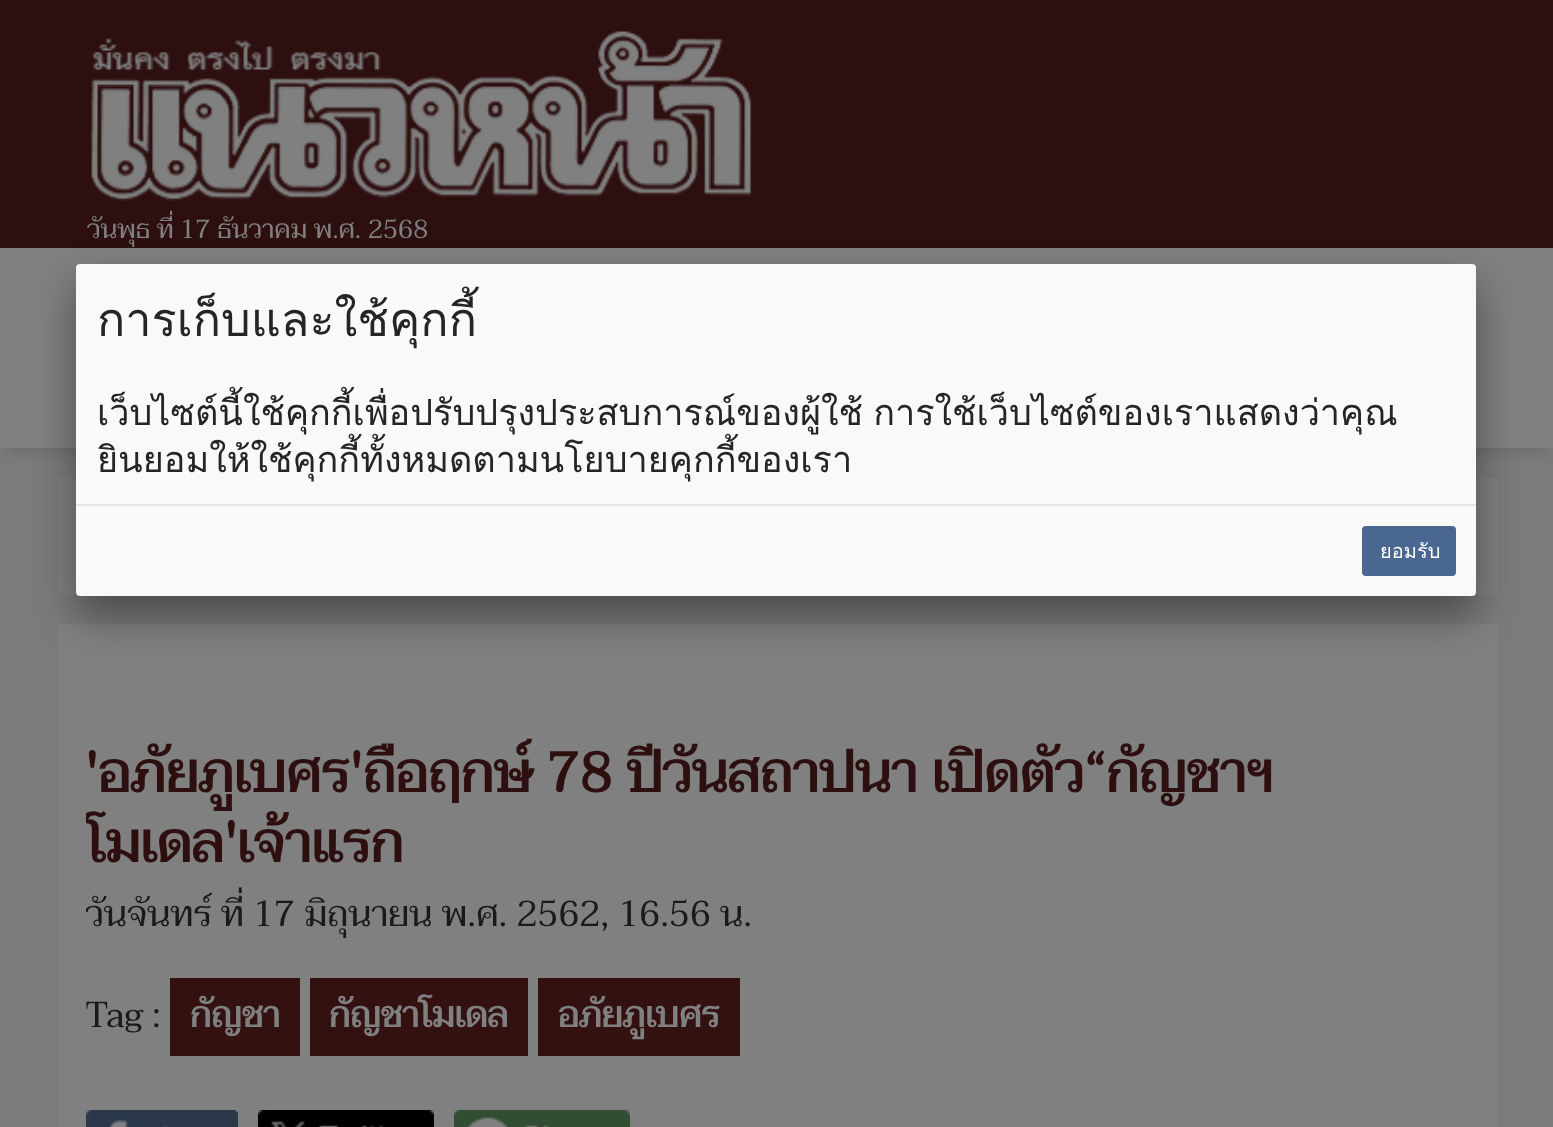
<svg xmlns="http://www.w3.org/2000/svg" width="1553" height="1127">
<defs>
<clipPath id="clip1"><rect x="86" y="704" width="1384" height="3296"/></clipPath>
</defs>
<rect width="100%" height="100%" fill="#7a7b7c"/>
<rect width="1553" height="248" fill="#2e0f10"/>
<image x="91" y="31" width="661" height="170" href="media/1.png"/>
<text x="87" y="238" style="font-family:Taviraj;font-size:26px;fill:#808080">วันพุธ ที่ 17 ธันวาคม พ.ศ. 2568</text>
<rect x="6" y="266" width="1542" height="188" fill="#6f6f6f" filter="blur(6px)"/>
<rect y="248" width="1553" height="200" fill="#808080"/>
<rect x="58" y="478" width="1440" height="116" fill="#808080"/>
<rect x="58" y="624" width="1440" height="503" fill="#808080"/>
<rect x="76" y="284" width="1400" height="332" rx="4" fill="#00000066" filter="blur(20px)"/>
<rect x="76" y="264" width="1400" height="332" rx="4" fill="#f9f9f9"/>
<text x="97" y="336" style="font-family:Loma;font-size:46.75px;fill:#232526">การเก็บและใช้คุกกี้</text>
<text x="97" y="425" word-spacing="-2" style="font-family:Loma;font-size:36px;fill:#232526">เว็บไซต์นี้ใช้คุกกี้เพื่อปรับปรุงประสบการณ์ของผู้ใช้ การใช้เว็บไซต์ของเราแสดงว่าคุณ</text>
<text x="97" y="472" style="font-family:Loma;font-size:36px;fill:#232526">ยินยอมให้ใช้คุกกี้ทั้งหมดตามนโยบายคุกกี้ของเรา</text>
<rect x="76" y="504" width="1400" height="2" fill="#e5e5e5"/>
<rect x="1363" y="527" width="92" height="48" rx="3" fill="#4a6792" stroke="#4a6792" stroke-width="2"/>
<text x="1380" y="558" style="font-family:Loma;font-size:20px;fill:#fff">ยอมรับ</text>
<text x="85" y="792" style="font-family:Taviraj;font-size:56px;font-weight:bold;fill:#2e0f10">'อภัยภูเบศร'ถือฤกษ์ 78 ปีวันสถาปนา เปิดตัว“กัญชาฯ</text>
<g clip-path="url(#clip1)">
<text x="85" y="862" style="font-family:Taviraj;font-size:56px;font-weight:bold;fill:#2e0f10">โมเดล'เจ้าแรก</text>
<text x="85" y="926" style="font-family:Taviraj;font-size:36px;fill:#1a1a1a">วันจันทร์ ที่ 17 มิถุนายน พ.ศ. 2562, 16.56 น.</text>
</g>
<text x="85" y="1027" style="font-family:Taviraj;font-size:36px;fill:#1a1a1a">Tag :</text>
<rect x="170" y="978" width="130" height="78" fill="#311"/>
<text x="190" y="1027" style="font-family:Taviraj;font-size:36px;font-weight:bold;fill:#808080">กัญชา</text>
<rect x="310" y="978" width="218" height="78" fill="#311"/>
<text x="329" y="1027" style="font-family:Taviraj;font-size:36px;font-weight:bold;fill:#808080">กัญชาโมเดล</text>
<rect x="538" y="978" width="202" height="78" fill="#311"/>
<text x="558" y="1027" style="font-family:Taviraj;font-size:36px;font-weight:bold;fill:#808080">อภัยภูเบศร</text>
<image x="86" y="1110" width="152" height="17" href="media/2.png"/>
<image x="258" y="1110" width="176" height="17" href="media/3.png"/>
<image x="454" y="1110" width="176" height="17" href="media/4.png"/>
</svg>
